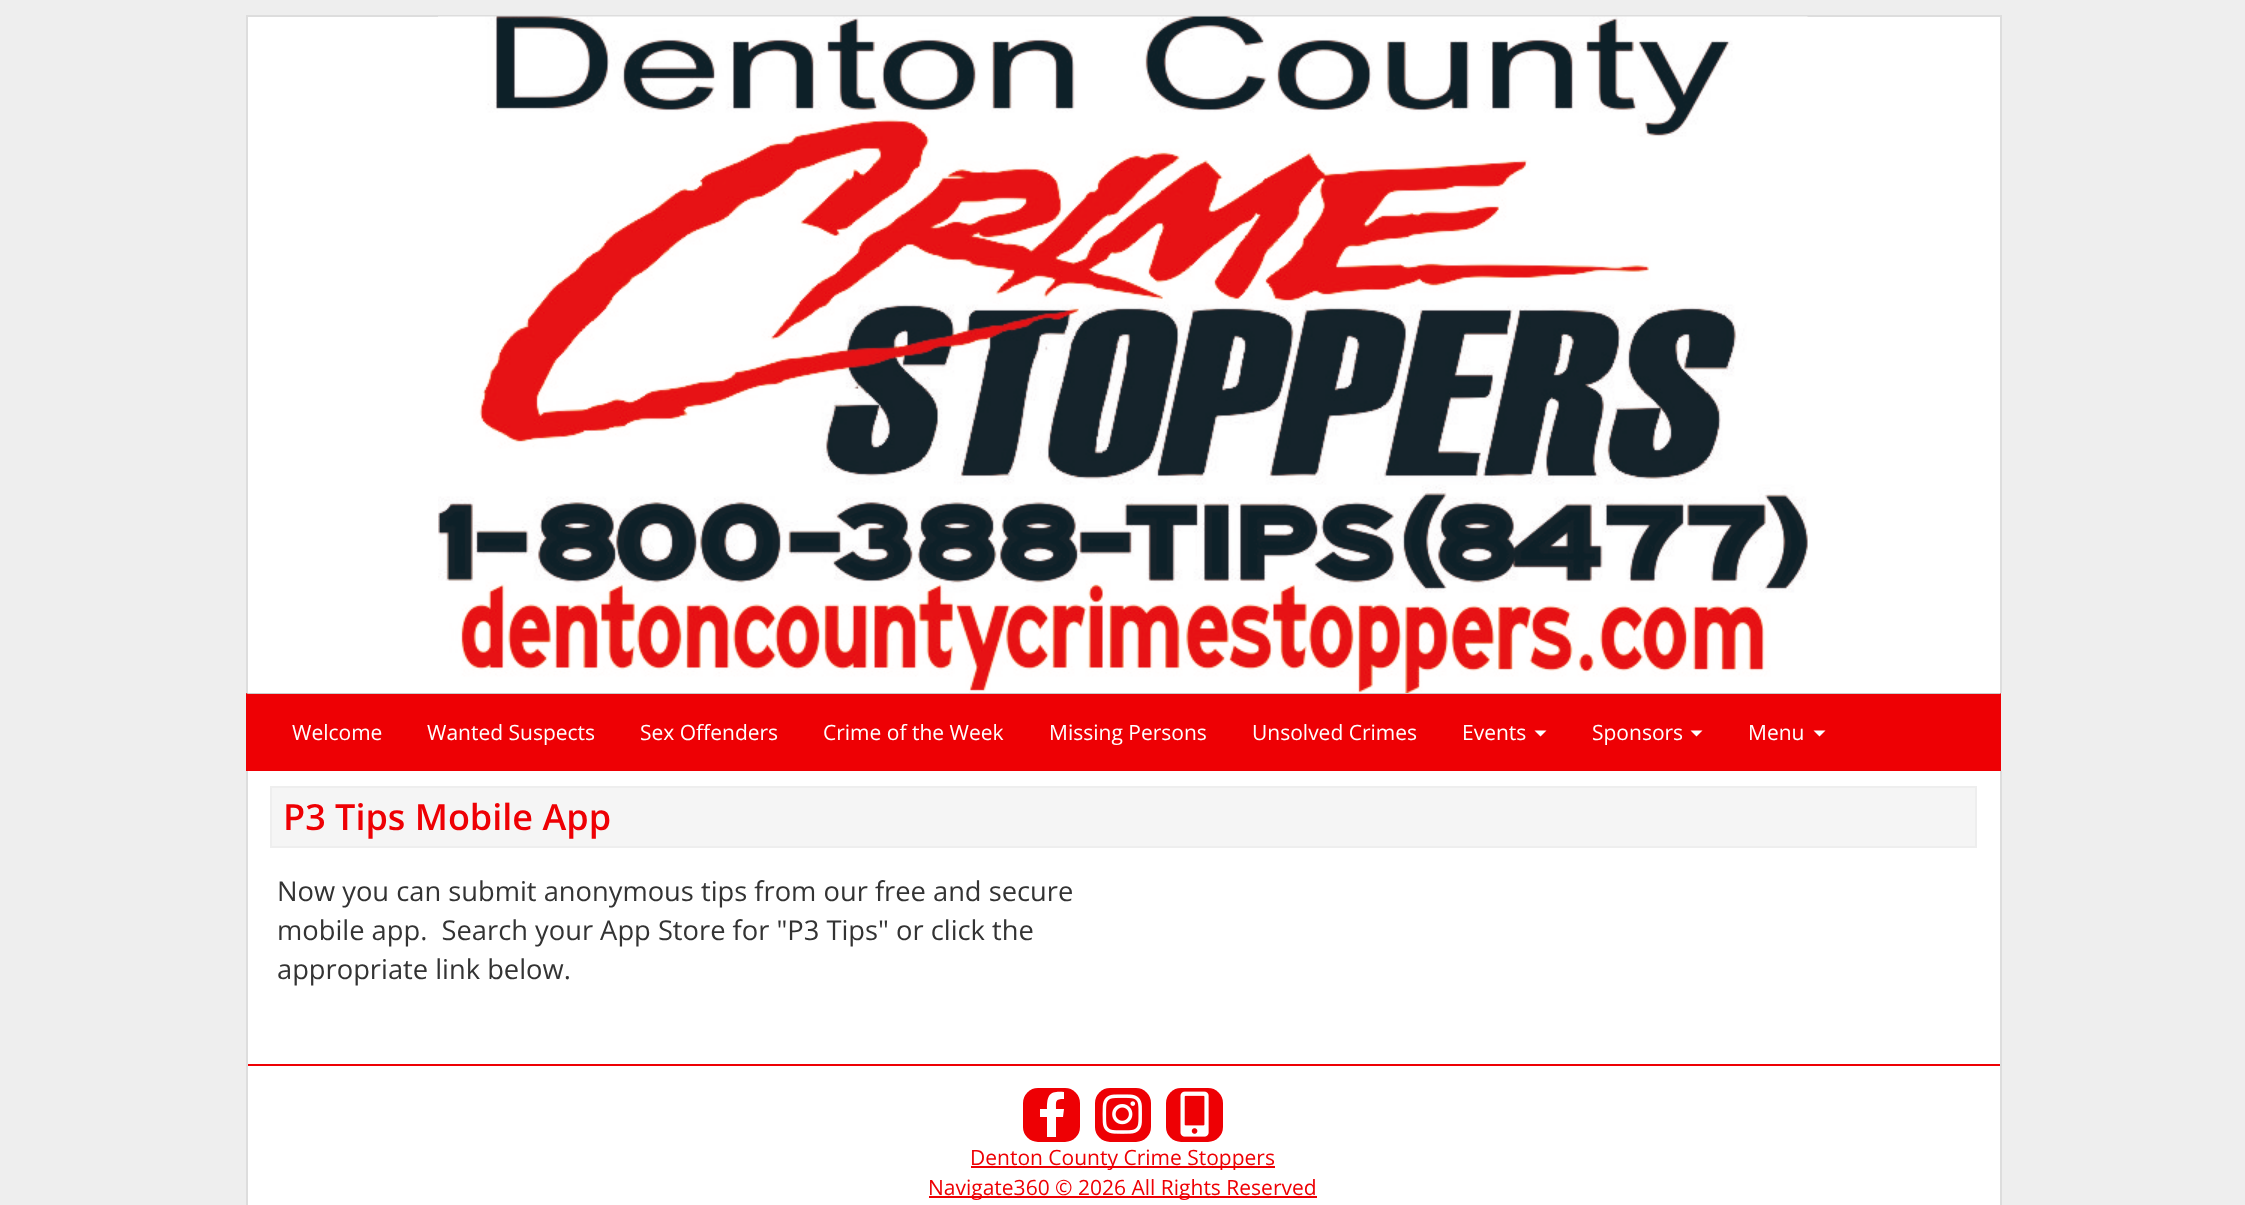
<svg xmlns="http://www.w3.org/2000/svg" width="2245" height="1205">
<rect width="100%" height="100%" fill="#eee"/>
<rect x="248" y="17" width="1752" height="676" fill="#fff"/>
<rect x="246" y="15" width="1755" height="2" fill="#ddd"/>
<rect x="2000" y="15" width="2" height="678" fill="#ddd"/>
<rect x="246" y="15" width="2" height="678" fill="#ddd"/>
<image x="438" y="16" width="1370" height="677" href="media/1.png"/>
<rect x="246" y="693" width="1755" height="78" fill="#ee0004"/>
<path d="M246 693h1755l-1 1h-1752z" fill="#ccc"/>
<text x="292" y="740" style="font-family:Open Sans;font-size:21px;fill:#fff">Welcome</text>
<text x="427" y="740" style="font-family:Open Sans;font-size:21px;fill:#fff">Wanted Suspects</text>
<text x="640" y="740" style="font-family:Open Sans;font-size:21px;fill:#fff">Sex Offenders</text>
<text x="823" y="740" style="font-family:Open Sans;font-size:21px;fill:#fff">Crime of the Week</text>
<text x="1049" y="740" style="font-family:Open Sans;font-size:21px;fill:#fff">Missing Persons</text>
<text x="1252" y="740" style="font-family:Open Sans;font-size:21px;fill:#fff">Unsolved Crimes</text>
<text x="1462" y="740" style="font-family:Open Sans;font-size:21px;fill:#fff">Events</text>
<path d="M1534.5 730.5h12l-6 6z" fill="#fff"/>
<text x="1592" y="740" style="font-family:Open Sans;font-size:21px;fill:#fff">Sponsors</text>
<path d="M1690.5 730.5h12l-6 6z" fill="#fff"/>
<text x="1748" y="740" style="font-family:Open Sans;font-size:21px;fill:#fff">Menu</text>
<path d="M1813.5 730.5h12l-6 6z" fill="#fff"/>
<rect x="248" y="771" width="1752" height="434" fill="#fff"/>
<rect x="2000" y="771" width="2" height="434" fill="#ddd"/>
<rect x="246" y="771" width="2" height="434" fill="#ddd"/>
<rect x="271" y="787" width="1705" height="60" fill="#f5f5f5" stroke="#eee" stroke-width="2"/>
<text x="283" y="830" style="font-family:Open Sans;font-size:36px;font-weight:600;fill:#ee0004">P3 Tips Mobile App</text>
<text x="277" y="901" style="font-family:Open Sans;font-size:27.3px;fill:#333">Now you can submit anonymous tips from our free and secure</text>
<text x="277" y="940" style="font-family:Open Sans;font-size:27.3px;fill:#333" xml:space="preserve">mobile app.  Search your App Store for "P3 Tips" or click the</text>
<text x="277" y="979" style="font-family:Open Sans;font-size:27.3px;fill:#333">appropriate link below.</text>
<rect x="248" y="1064" width="1752" height="2" fill="#ee0004"/>
<rect x="1023" y="1088" width="57" height="54" rx="15" fill="#ee0004"/>
<path d="M1063 1117h-7v20h-9v-20h-7v-8h7c0-15 3-18 17-17v7c-9 0-8 2-8 10h8z" fill="#fff"/>
<rect x="1095" y="1088" width="56" height="54" rx="15" fill="#ee0004"/>
<image x="1102" y="1094" width="40" height="40" href="media/2.png"/>
<rect x="1166" y="1088" width="57" height="54" rx="15" fill="#ee0004"/>
<image x="1180" y="1091" width="29" height="46" href="media/3.png"/>
<rect x="971" y="1166" width="304" height="2" fill="#ee0004"/>
<text x="970" y="1165" style="font-family:Open Sans;font-size:21px;fill:#ee0004">Denton County Crime Stoppers</text>
<rect x="929" y="1196" width="388" height="2" fill="#ee0004"/>
<text x="928" y="1195" style="font-family:Open Sans;font-size:21px;fill:#ee0004">Navigate360 © 2026 All Rights Reserved</text>
</svg>
